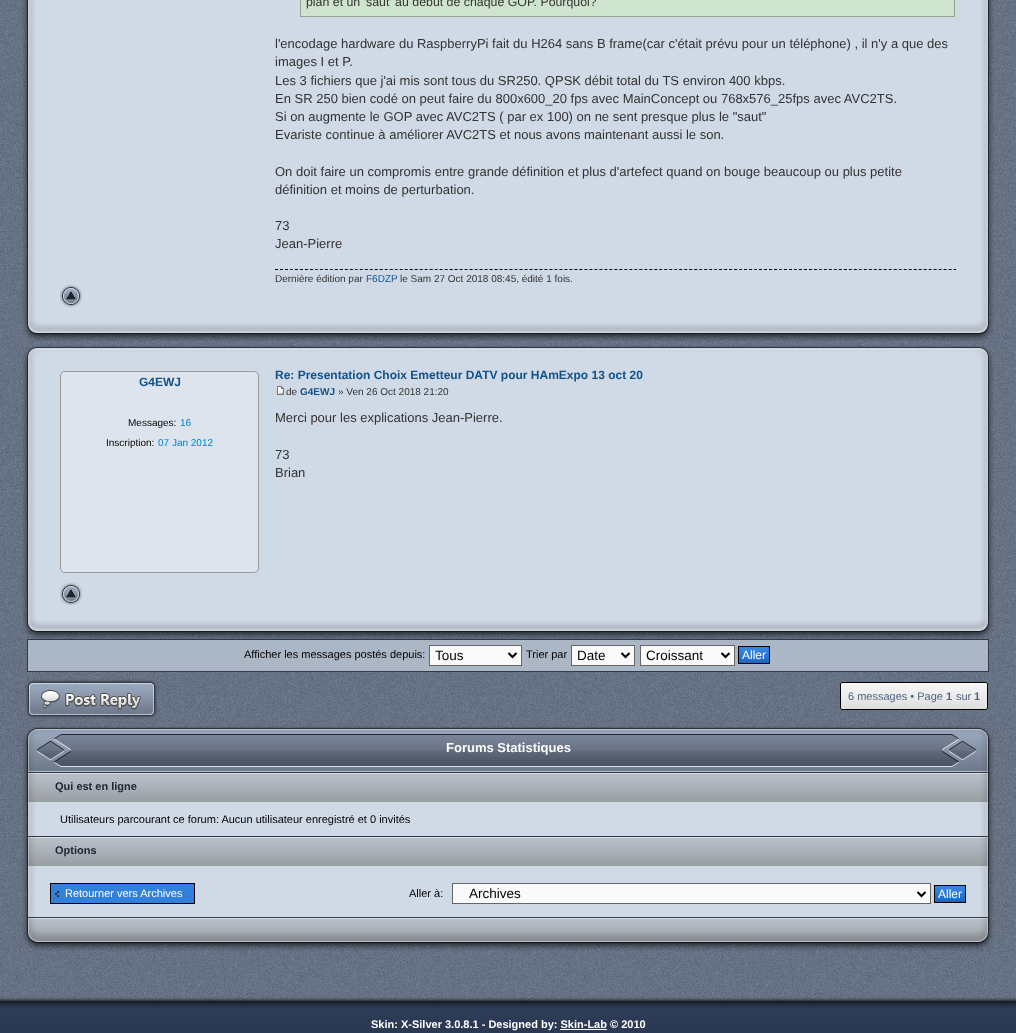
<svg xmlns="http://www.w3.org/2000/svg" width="1016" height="1033">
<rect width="100%" height="100%" fill="#fff"/>
<image x="0" y="0" width="1016" height="1001" href="media/1.png"/>
<image x="22" y="0" width="28" height="321" href="media/2.png"/>
<image x="966" y="0" width="28" height="321" href="media/3.png"/>
<rect x="50" width="916" height="321" fill="#d0d9e6"/>
<rect x="300.5" y="-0.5" width="654" height="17" fill="#cfe4cf" stroke="#91a691"/>
<text x="306" y="6" style="font-family:Liberation Sans;font-size:12.35px;fill:#333">plan et un 'saut' au début de chaque GOP. Pourquoi?</text>
<text x="275" y="48" style="font-family:Liberation Sans;font-size:13px;fill:#333">l'encodage hardware du RaspberryPi fait du H264 sans B frame(car c'était prévu pour un téléphone) , il n'y a que des</text>
<text x="275" y="66" style="font-family:Liberation Sans;font-size:13px;fill:#333">images I et P.</text>
<text x="275" y="85" style="font-family:Liberation Sans;font-size:13px;fill:#333">Les 3 fichiers que j'ai mis sont tous du SR250. QPSK débit total du TS environ 400 kbps.</text>
<text x="275" y="103" style="font-family:Liberation Sans;font-size:13px;fill:#333">En SR 250 bien codé on peut faire du 800x600_20 fps avec MainConcept ou 768x576_25fps avec AVC2TS.</text>
<text x="275" y="121" style="font-family:Liberation Sans;font-size:13px;fill:#333">Si on augmente le GOP avec AVC2TS ( par ex 100) on ne sent presque plus le "saut"</text>
<text x="275" y="139" style="font-family:Liberation Sans;font-size:13px;fill:#333">Evariste continue à améliorer AVC2TS et nous avons maintenant aussi le son.</text>
<text x="275" y="176" style="font-family:Liberation Sans;font-size:13px;fill:#333">On doit faire un compromis entre grande définition et plus d'artefect quand on bouge beaucoup ou plus petite</text>
<text x="275" y="194" style="font-family:Liberation Sans;font-size:13px;fill:#333">définition et moins de perturbation.</text>
<text x="275" y="230" style="font-family:Liberation Sans;font-size:13px;fill:#333">73</text>
<text x="275" y="248" style="font-family:Liberation Sans;font-size:13px;fill:#333">Jean-Pierre</text>
<path d="M275 269.5h681" fill="none" stroke="#000" stroke-dasharray="3 1.99"/>
<text x="275" y="282" style="font-family:Liberation Sans;font-size:10px;fill:#333">Dernière édition par</text>
<text x="366" y="282" style="font-family:Liberation Sans;font-size:10px;fill:#105289">F6DZP</text>
<text x="400" y="282" style="font-family:Liberation Sans;font-size:10px;fill:#333">le Sam 27 Oct 2018 08:45, édité 1 fois.</text>
<image x="60" y="285" width="22" height="22" href="media/4.png"/>
<image x="22" y="321" width="28" height="20" href="media/5.png"/>
<image x="966" y="321" width="28" height="20" href="media/6.png"/>
<image x="50" y="321" width="916" height="20" href="media/7.png"/>
<image x="23" y="345" width="27" height="16" href="media/8.png"/>
<image x="966" y="345" width="27" height="16" href="media/9.png"/>
<image x="50" y="345" width="916" height="16" href="media/10.png"/>
<image x="22" y="361" width="28" height="258" href="media/11.png"/>
<image x="966" y="361" width="28" height="258" href="media/12.png"/>
<rect x="50" y="361" width="916" height="258" fill="#d0d9e6"/>
<rect x="60.5" y="371.5" width="198" height="201" rx="4.5" fill="#dee4ed" stroke="#999"/>
<text x="139" y="386" style="font-family:Liberation Sans;font-size:12px;font-weight:bold;fill:#105289">G4EWJ</text>
<text x="128" y="426" style="font-family:Liberation Sans;font-size:10px;fill:#000">Messages:</text>
<text x="180" y="426" style="font-family:Liberation Sans;font-size:10px;fill:#0080d2">16</text>
<text x="106" y="446" style="font-family:Liberation Sans;font-size:10px;fill:#000">Inscription:</text>
<text x="158" y="446" style="font-family:Liberation Sans;font-size:10px;fill:#0080d2">07 Jan 2012</text>
<text x="275" y="379" style="font-family:Liberation Sans;font-size:12px;font-weight:bold;fill:#105289">Re: Presentation Choix Emetteur DATV pour HAmExpo 13 oct 20</text>
<image x="277" y="386" width="7" height="9" href="media/13.png"/>
<text x="286" y="395" style="font-family:Liberation Sans;font-size:10px;fill:#333">de</text>
<text x="300" y="395" style="font-family:Liberation Sans;font-size:10px;font-weight:bold;fill:#105289">G4EWJ</text>
<text x="338" y="395" style="font-family:Liberation Sans;font-size:10px;fill:#333">» Ven 26 Oct 2018 21:20</text>
<text x="275" y="422" style="font-family:Liberation Sans;font-size:13px;fill:#333">Merci pour les explications Jean-Pierre.</text>
<text x="275" y="459" style="font-family:Liberation Sans;font-size:13px;fill:#333">73</text>
<text x="275" y="477" style="font-family:Liberation Sans;font-size:13px;fill:#333">Brian</text>
<image x="60" y="583" width="22" height="22" href="media/4.png"/>
<image x="22" y="619" width="28" height="20" href="media/14.png"/>
<image x="966" y="619" width="28" height="20" href="media/15.png"/>
<image x="50" y="619" width="916" height="20" href="media/16.png"/>
<rect x="27.5" y="639.5" width="961" height="32" fill="#acb7c6" stroke="#303a4a"/>
<text x="244" y="658" style="font-family:Liberation Sans;font-size:11px;fill:#000">Afficher les messages postés depuis:</text>
<rect x="429.5" y="645.5" width="92" height="20" fill="#fafafa" stroke="#666"/>
<path d="M508.5 653l4 4l4-4" fill="none" stroke="#000" stroke-width="2"/>
<text x="435" y="660" style="font-family:Liberation Sans;font-size:13.5px;fill:#000">Tous</text>
<text x="526" y="658" style="font-family:Liberation Sans;font-size:11px;fill:#000">Trier par</text>
<rect x="571.5" y="645.5" width="63" height="20" fill="#fafafa" stroke="#666"/>
<path d="M621.5 653l4 4l4-4" fill="none" stroke="#000" stroke-width="2"/>
<text x="577" y="660" style="font-family:Liberation Sans;font-size:13.5px;fill:#000">Date</text>
<rect x="640.5" y="645.5" width="94" height="20" fill="#fafafa" stroke="#666"/>
<path d="M721.5 653l4 4l4-4" fill="none" stroke="#000" stroke-width="2"/>
<text x="646" y="660" style="font-family:Liberation Sans;font-size:13.5px;fill:#000">Croissant</text>
<image x="739" y="647" width="30" height="16" href="media/17.png"/>
<rect x="738.5" y="646.5" width="31" height="17" fill="none" stroke="#000"/>
<text x="742" y="659" style="font-family:Liberation Sans;font-size:12px;fill:#fff">Aller</text>
<image x="25" y="679" width="133" height="40" href="media/18.png"/>
<image x="840" y="682" width="148" height="28" href="media/19.png"/>
<rect x="840.5" y="682.5" width="147" height="27" rx="1.5" fill="none" stroke="#000"/>
<text x="848" y="700" style="font-family:Liberation Sans;font-size:11px;fill:#536482">6 messages • Page</text>
<text x="946" y="700" style="font-family:Liberation Sans;font-size:11px;font-weight:bold;fill:#536482">1</text>
<text x="956" y="700" style="font-family:Liberation Sans;font-size:11px;fill:#536482">sur</text>
<text x="974" y="700" style="font-family:Liberation Sans;font-size:11px;font-weight:bold;fill:#536482">1</text>
<image x="22" y="726" width="72" height="46" href="media/20.png"/>
<image x="922" y="726" width="72" height="46" href="media/21.png"/>
<image x="94" y="726" width="828" height="46" href="media/22.png"/>
<text x="446" y="752" style="font-family:Liberation Sans;font-size:13px;font-weight:bold;fill:#fff">Forums Statistiques</text>
<image x="22" y="772" width="28" height="30" href="media/23.png"/>
<image x="966" y="772" width="28" height="30" href="media/24.png"/>
<image x="50" y="772" width="916" height="30" href="media/25.png"/>
<text x="55" y="790" style="font-family:Liberation Sans;font-size:11px;font-weight:bold;fill:#1c2431">Qui est en ligne</text>
<image x="22" y="802" width="28" height="34" href="media/26.png"/>
<image x="966" y="802" width="28" height="34" href="media/27.png"/>
<rect x="50" y="802" width="916" height="34" fill="#d0d9e6"/>
<text x="60" y="823" style="font-family:Liberation Sans;font-size:11px;fill:#000">Utilisateurs parcourant ce forum: Aucun utilisateur enregistré et 0 invités</text>
<image x="22" y="836" width="28" height="30" href="media/28.png"/>
<image x="966" y="836" width="28" height="30" href="media/29.png"/>
<image x="50" y="836" width="916" height="30" href="media/25.png"/>
<text x="55" y="854" style="font-family:Liberation Sans;font-size:11px;font-weight:bold;fill:#1c2431">Options</text>
<image x="22" y="866" width="28" height="51" href="media/30.png"/>
<image x="966" y="866" width="28" height="51" href="media/31.png"/>
<rect x="50" y="866" width="916" height="51" fill="#d0d9e6"/>
<rect x="51" y="884" width="143" height="19" fill="#3180db"/>
<image x="55" y="891" width="4" height="6" href="media/32.png"/>
<rect x="50.5" y="883.5" width="144" height="20" fill="none" stroke="#000"/>
<text x="65" y="897" style="font-family:Liberation Sans;font-size:11px;fill:#fff">Retourner vers Archives</text>
<text x="409" y="897" style="font-family:Liberation Sans;font-size:11px;fill:#000">Aller à:</text>
<rect x="452.5" y="883.5" width="478" height="20" fill="#fafafa" stroke="#666"/>
<path d="M917.5 892l4 4l4-4" fill="none" stroke="#000" stroke-width="2"/>
<text x="469" y="898" style="font-family:Liberation Sans;font-size:13.5px;fill:#000">Archives</text>
<image x="935" y="886" width="30" height="16" href="media/17.png"/>
<rect x="934.5" y="885.5" width="31" height="17" fill="none" stroke="#000"/>
<text x="938" y="898" style="font-family:Liberation Sans;font-size:12px;fill:#fff">Aller</text>
<image x="22" y="917" width="72" height="34" href="media/33.png"/>
<image x="922" y="917" width="72" height="34" href="media/34.png"/>
<image x="94" y="917" width="828" height="34" href="media/35.png"/>
<image x="0" y="997" width="5" height="36" href="media/36.png"/>
<image x="1011" y="997" width="5" height="36" href="media/37.png"/>
<image x="5" y="997" width="1006" height="36" href="media/38.png"/>
<text x="371" y="1028" style="font-family:Liberation Sans;font-size:11px;font-weight:bold;fill:#fff">Skin: X-Silver 3.0.8.1 - Designed by: Skin-Lab © 2010</text>
<rect x="560" y="1029" width="47" height="1" fill="#fff"/>
</svg>
